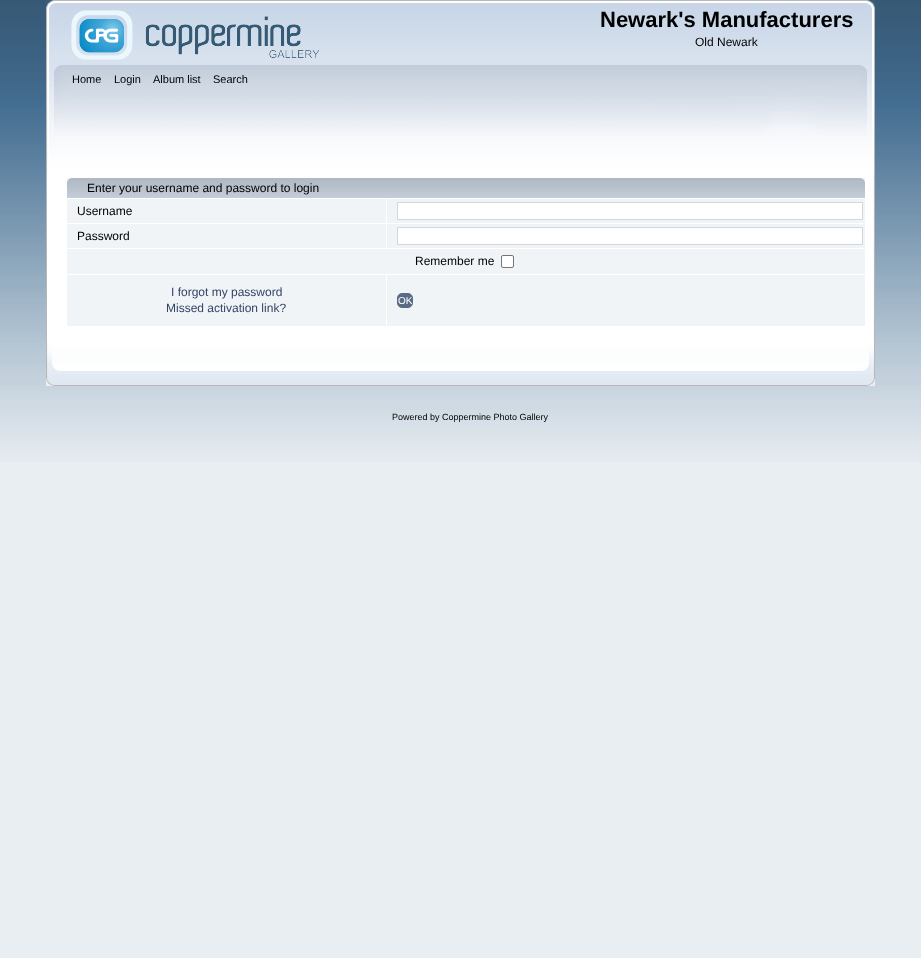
<svg xmlns="http://www.w3.org/2000/svg" width="921" height="958">
<rect width="100%" height="100%" fill="#e9eef2"/>
<image x="0" y="0" width="921" height="462" href="media/1.png"/>
<image x="46" y="0" width="821" height="65" href="media/2.png"/>
<image x="867" y="0" width="8" height="65" href="media/3.png"/>
<image x="71" y="10" width="248" height="50" href="media/4.png"/>
<text x="600" y="27" style="font-family:Liberation Sans;font-size:22px;font-weight:bold;fill:#000">Newark's Manufacturers</text>
<text x="695" y="46" style="font-family:Liberation Sans;font-size:12px;fill:#000">Old Newark</text>
<image x="46" y="65" width="814" height="110" href="media/5.png"/>
<image x="860" y="65" width="15" height="110" href="media/6.png"/>
<text x="72" y="83" style="font-family:Liberation Sans;font-size:11px;fill:#000">Home</text>
<text x="114" y="83" style="font-family:Liberation Sans;font-size:11px;fill:#000">Login</text>
<text x="153" y="83" style="font-family:Liberation Sans;font-size:11px;fill:#000">Album list</text>
<text x="213" y="83" style="font-family:Liberation Sans;font-size:11px;fill:#000">Search</text>
<rect x="47" y="175" width="826" height="167" fill="#fff"/>
<rect x="46" y="175" width="1" height="167" fill="#b7b7b7"/>
<image x="873" y="175" width="2" height="167" href="media/7.png"/>
<image x="67" y="178" width="798" height="20" href="media/8.png"/>
<image x="860" y="178" width="5" height="4" href="media/9.png"/>
<text x="87" y="192" style="font-family:Liberation Sans;font-size:12px;fill:#000">Enter your username and password to login</text>
<rect x="67" y="199" width="319" height="24" fill="#f0f4f7"/>
<text x="77" y="215" style="font-family:Liberation Sans;font-size:12px;fill:#000">Username</text>
<rect x="387" y="199" width="478" height="24" fill="#f0f4f7"/>
<rect x="397.5" y="202.5" width="465" height="17" fill="#fff" stroke="#d1d7dc"/>
<rect x="67" y="224" width="319" height="24" fill="#f0f4f7"/>
<text x="77" y="240" style="font-family:Liberation Sans;font-size:12px;fill:#000">Password</text>
<rect x="387" y="224" width="478" height="24" fill="#f0f4f7"/>
<rect x="397.5" y="227.5" width="465" height="17" fill="#fff" stroke="#d1d7dc"/>
<rect x="67" y="249" width="798" height="25" fill="#f0f4f7"/>
<text x="415" y="265" style="font-family:Liberation Sans;font-size:12px;fill:#000">Remember me</text>
<rect x="501.5" y="255.5" width="12" height="12" rx="1.5" fill="#fff" stroke="#767676"/>
<rect x="67" y="275" width="319" height="51" fill="#f0f4f7"/>
<text x="171" y="296" style="font-family:Liberation Sans;font-size:12px;fill:#346">I forgot my password</text>
<text x="166" y="312" style="font-family:Liberation Sans;font-size:12px;fill:#346">Missed activation link?</text>
<rect x="387" y="275" width="478" height="51" fill="#f0f4f7"/>
<rect x="397.5" y="293.5" width="15" height="14" rx="4.5" fill="#5a6c85" stroke="#5a6c85"/>
<text x="398" y="304" style="font-family:Liberation Sans;font-size:10px;fill:#fff">OK</text>
<image x="46" y="342" width="816" height="44" href="media/10.png"/>
<image x="862" y="342" width="13" height="44" href="media/11.png"/>
<text x="392" y="420" style="font-family:Liberation Sans;font-size:9px;fill:#000">Powered by Coppermine Photo Gallery</text>
</svg>
